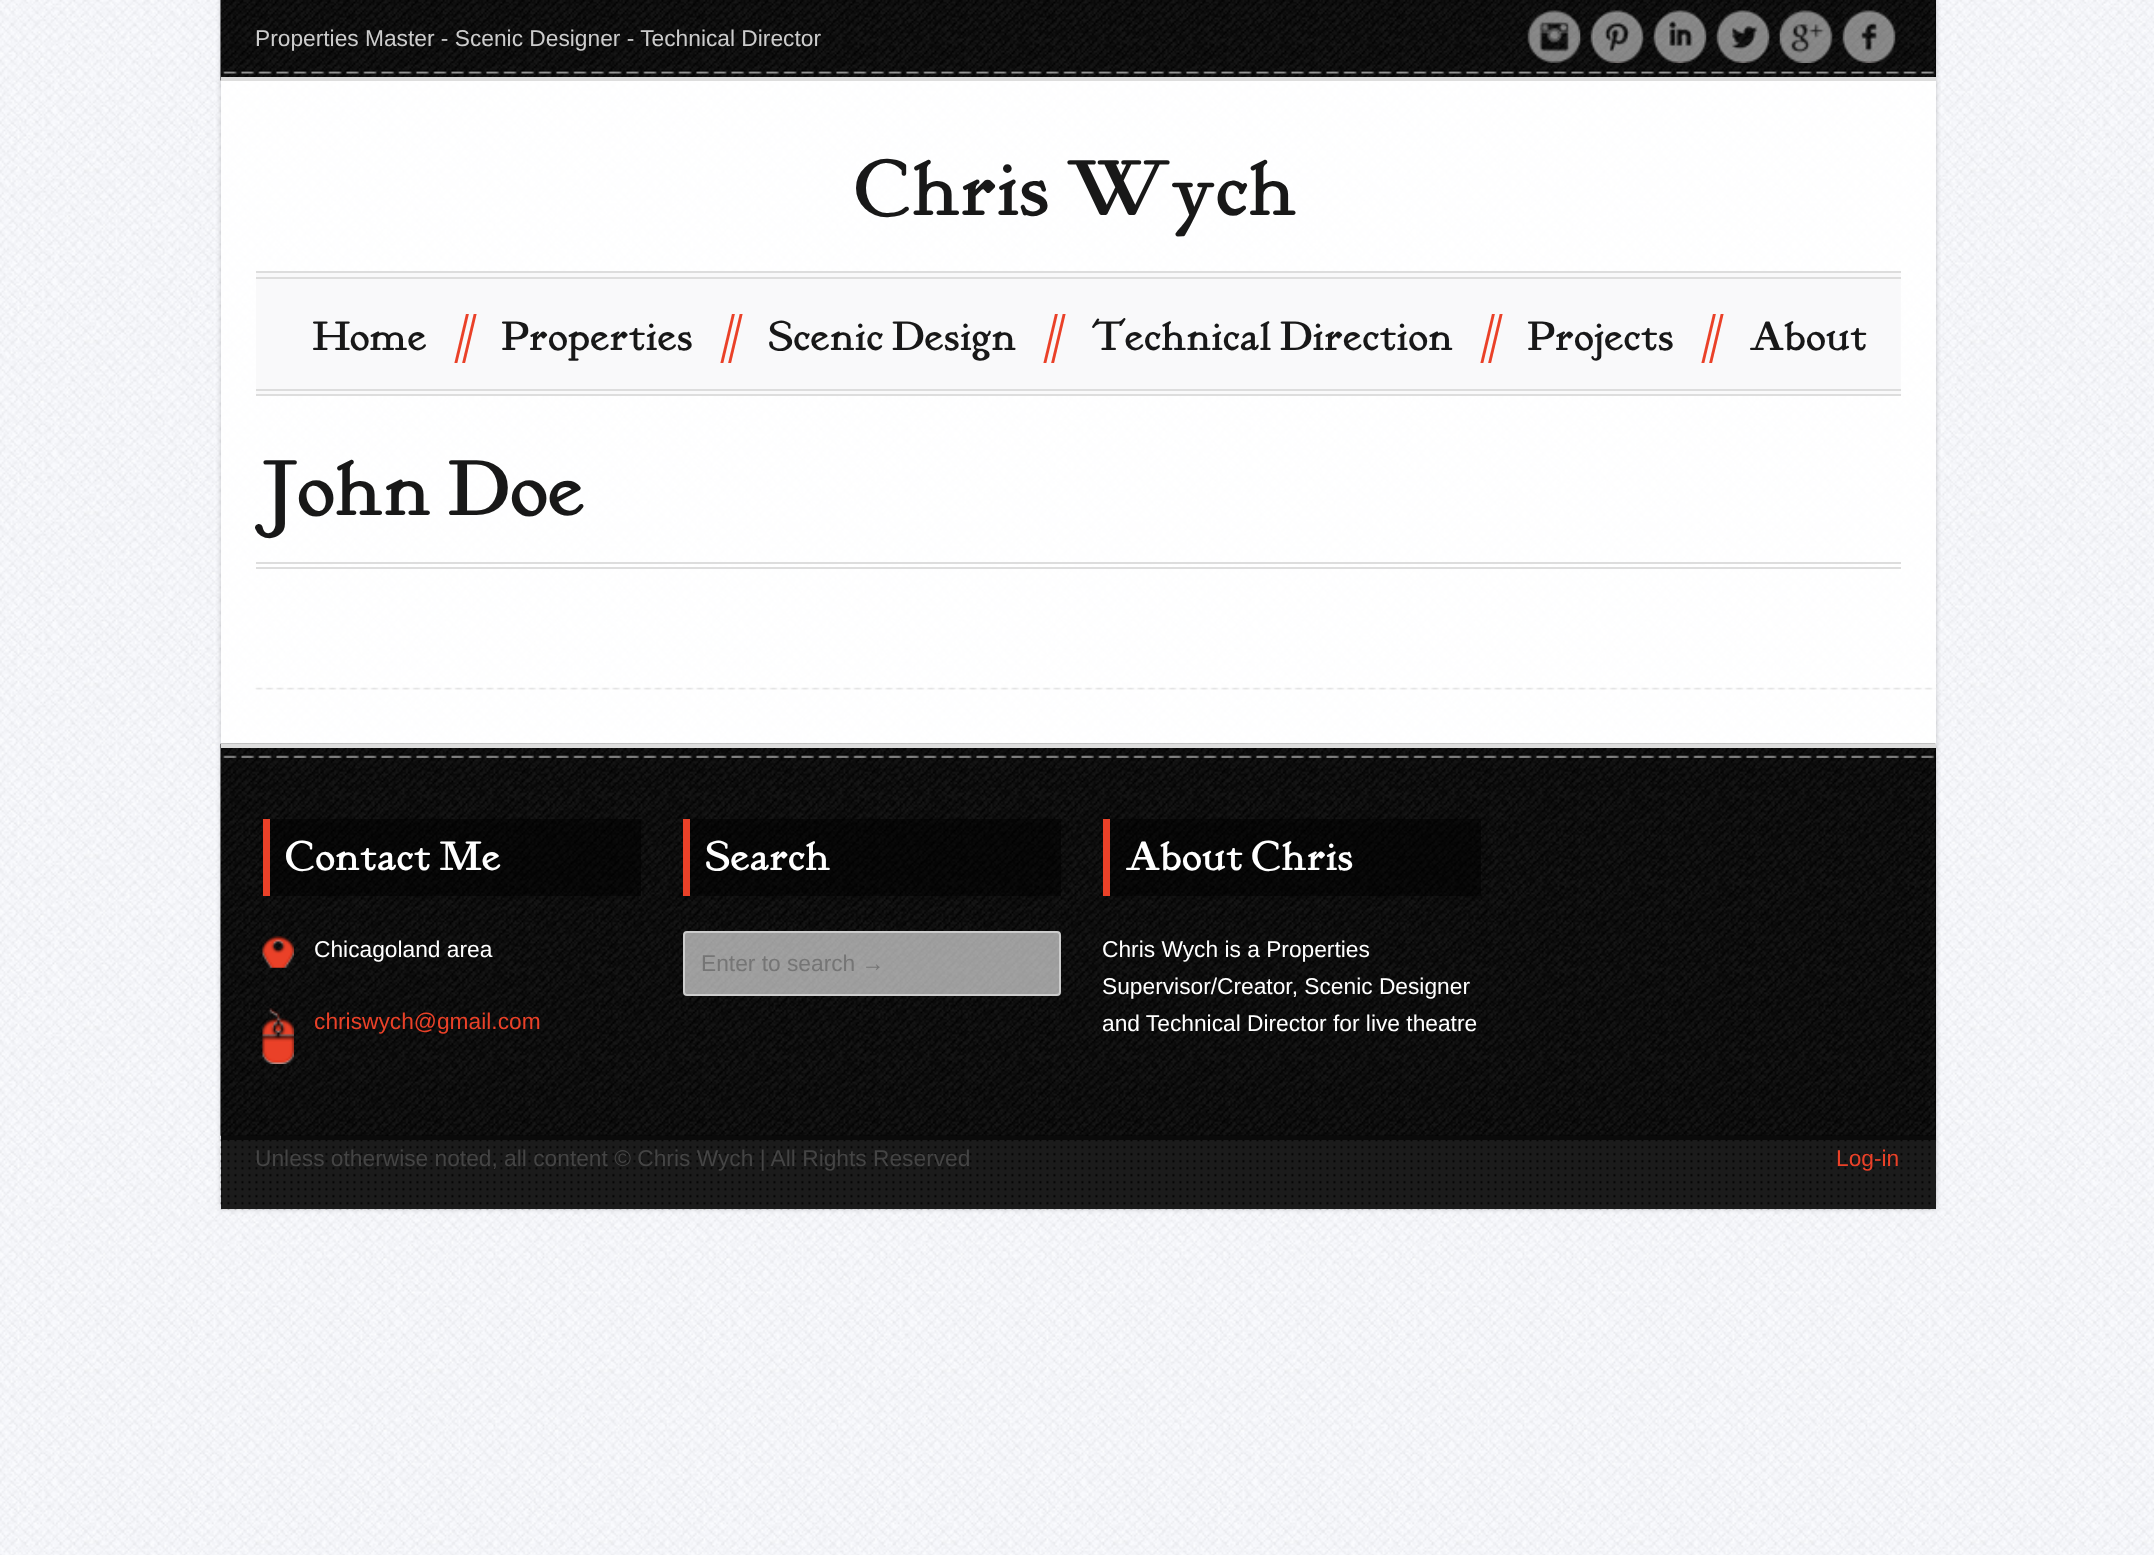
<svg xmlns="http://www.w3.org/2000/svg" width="2154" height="1555">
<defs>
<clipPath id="clip1"><path d="M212 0h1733v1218h-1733zm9 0h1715v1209h-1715z" clip-rule="evenodd"/></clipPath>
</defs>
<rect width="100%" height="100%" fill="#fff"/>
<image x="0" y="0" width="2154" height="1555" href="media/1.png"/>
<g clip-path="url(#clip1)">
<rect x="221" width="1715" height="1209" fill="#00000033" filter="blur(2.5px)"/>
</g>
<rect x="221" y="81" width="1715" height="663" fill="#ffffffe6"/>
<rect x="1935" width="1" height="77" fill="#000"/>
<image x="220" y="0" width="1716" height="81" href="media/2.png"/>
<rect x="221" y="77" width="1715" height="4" fill="#ddd"/>
<text x="255" y="46" style="font-family:Liberation Sans;font-size:22.75px;fill:#ccc">Properties Master - Scenic Designer - Technical Director</text>
<image x="1527" y="10" width="54" height="53" href="media/3.png"/>
<image x="1590" y="10" width="54" height="53" href="media/4.png"/>
<image x="1653" y="10" width="54" height="53" href="media/5.png"/>
<image x="1716" y="10" width="54" height="53" href="media/6.png"/>
<image x="1779" y="10" width="54" height="53" href="media/7.png"/>
<image x="1842" y="10" width="54" height="53" href="media/8.png"/>
<image x="222" y="70" width="1713" height="4" href="media/9.png"/>
<text x="856" y="215" style="font-family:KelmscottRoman;font-size:80.5px;fill:#181818">Chris Wych</text>
<rect x="256" y="273" width="1645" height="121" fill="#f9f9fa"/>
<rect x="256" y="271" width="1645" height="2" fill="#ddd"/>
<rect x="256" y="277" width="1645" height="2" fill="#ddd"/>
<rect x="256" y="389" width="1645" height="2" fill="#ddd"/>
<rect x="256" y="394" width="1645" height="2" fill="#ddd"/>
<text x="313" y="350" style="font-family:KelmscottRoman;font-size:42px;fill:#181818">Home</text>
<text x="454" y="350" style="font-family:KelmscottRoman;font-size:52px;letter-spacing:-7px;fill:#ea4128">//</text>
<text x="502" y="350" style="font-family:KelmscottRoman;font-size:42px;fill:#181818">Properties</text>
<text x="720" y="350" style="font-family:KelmscottRoman;font-size:52px;letter-spacing:-7px;fill:#ea4128">//</text>
<text x="769" y="350" style="font-family:KelmscottRoman;font-size:42px;fill:#181818">Scenic Design</text>
<text x="1043" y="350" style="font-family:KelmscottRoman;font-size:52px;letter-spacing:-7px;fill:#ea4128">//</text>
<text x="1092" y="350" style="font-family:KelmscottRoman;font-size:42px;fill:#181818">Technical Direction</text>
<text x="1480" y="350" style="font-family:KelmscottRoman;font-size:52px;letter-spacing:-7px;fill:#ea4128">//</text>
<text x="1528" y="350" style="font-family:KelmscottRoman;font-size:42px;fill:#181818">Projects</text>
<text x="1701" y="350" style="font-family:KelmscottRoman;font-size:52px;letter-spacing:-7px;fill:#ea4128">//</text>
<text x="1750" y="350" style="font-family:KelmscottRoman;font-size:42px;fill:#181818">About</text>
<rect x="256" y="562" width="1645" height="2" fill="#ddd"/>
<rect x="256" y="567" width="1645" height="2" fill="#ddd"/>
<text x="255" y="515" style="font-family:KelmscottRoman;font-size:80.5px;fill:#181818">John Doe</text>
<image x="255" y="687" width="1681" height="3" href="media/10.png"/>
<rect x="221" y="748" width="1715" height="388" fill="#000"/>
<image x="220" y="743" width="1716" height="393" href="media/11.png"/>
<rect x="221" y="744" width="1715" height="4" fill="#ddd"/>
<image x="222" y="754" width="1713" height="4" href="media/12.png"/>
<rect x="270" y="819" width="371" height="77" fill="#00000080"/>
<rect x="263" y="819" width="7" height="77" fill="#ea4128"/>
<text x="286" y="870" style="font-family:KelmscottRoman;font-size:42px;fill:#fff">Contact Me</text>
<image x="262" y="936" width="32" height="32" href="media/13.png"/>
<text x="314" y="957" style="font-family:Liberation Sans;font-size:22.75px;fill:#fff">Chicagoland area</text>
<image x="262" y="1008" width="32" height="56" href="media/14.png"/>
<text x="314" y="1029" style="font-family:Liberation Sans;font-size:22.75px;fill:#ea4128">chriswych@gmail.com</text>
<rect x="690" y="819" width="371" height="77" fill="#00000080"/>
<rect x="683" y="819" width="7" height="77" fill="#ea4128"/>
<text x="706" y="870" style="font-family:KelmscottRoman;font-size:42px;fill:#fff">Search</text>
<rect x="684" y="932" width="376" height="63" rx="3" fill="#ffffff99" stroke="#ccc" stroke-width="2"/>
<text x="701" y="971" style="font-family:Liberation Sans;font-size:22.75px;fill:#757575">Enter to search →</text>
<rect x="1110" y="819" width="371" height="77" fill="#00000080"/>
<rect x="1103" y="819" width="7" height="77" fill="#ea4128"/>
<text x="1126" y="870" style="font-family:KelmscottRoman;font-size:42px;fill:#fff">About Chris</text>
<text x="1102" y="957" style="font-family:Liberation Sans;font-size:22.75px;fill:#fff">Chris Wych is a Properties</text>
<text x="1102" y="994" style="font-family:Liberation Sans;font-size:22.75px;fill:#fff">Supervisor/Creator, Scenic Designer</text>
<text x="1102" y="1031" style="font-family:Liberation Sans;font-size:22.75px;fill:#fff">and Technical Director for live theatre</text>
<rect x="221" y="1140" width="1715" height="69" fill="#1b1b1b"/>
<image x="220" y="1139" width="1716" height="71" href="media/15.png"/>
<rect x="221" y="1136" width="1715" height="4" fill="#0a0a0a"/>
<text x="255" y="1166" style="font-family:Liberation Sans;font-size:22.75px;fill:#444">Unless otherwise noted, all content © Chris Wych | All Rights Reserved</text>
<text x="1836" y="1166" style="font-family:Liberation Sans;font-size:22.75px;fill:#ea4128">Log-in</text>
</svg>
